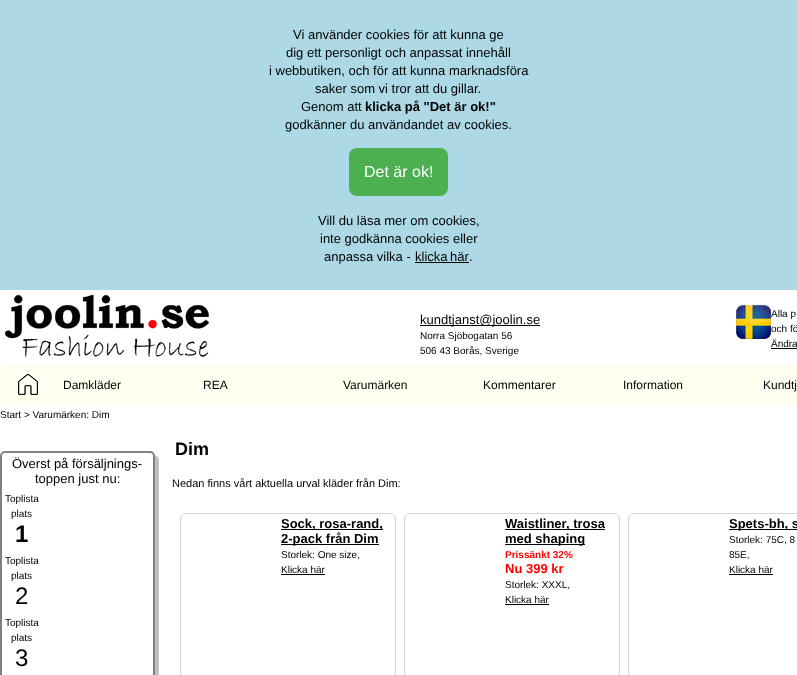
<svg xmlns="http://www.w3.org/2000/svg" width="797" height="675">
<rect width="100%" height="100%" fill="#fff"/>
<rect width="797" height="290" fill="#add8e6"/>
<text x="293" y="39" style="font-family:Liberation Sans;font-size:13px;fill:#000">Vi använder cookies för att kunna ge</text>
<text x="286" y="57" style="font-family:Liberation Sans;font-size:13px;fill:#000">dig ett personligt och anpassat innehåll</text>
<text x="269" y="75" style="font-family:Liberation Sans;font-size:13px;fill:#000">i webbutiken, och för att kunna marknadsföra</text>
<text x="315" y="93" style="font-family:Liberation Sans;font-size:13px;fill:#000">saker som vi tror att du gillar.</text>
<text x="301" y="111" style="font-family:Liberation Sans;font-size:13px;fill:#000">Genom att</text>
<text x="365" y="111" style="font-family:Liberation Sans;font-size:13px;font-weight:bold;fill:#000">klicka på "Det är ok!"</text>
<text x="285" y="129" style="font-family:Liberation Sans;font-size:13px;fill:#000">godkänner du användandet av cookies.</text>
<rect x="349" y="148" width="99" height="48" rx="8" fill="#4caf50"/>
<text x="364" y="177" style="font-family:Liberation Sans;font-size:16px;fill:#fff">Det är ok!</text>
<text x="318" y="225" style="font-family:Liberation Sans;font-size:13px;fill:#000">Vill du läsa mer om cookies,</text>
<text x="320" y="243" style="font-family:Liberation Sans;font-size:13px;fill:#000">inte godkänna cookies eller</text>
<text x="324" y="261" style="font-family:Liberation Sans;font-size:13px;fill:#000">anpassa vilka -</text>
<text x="415" y="261" word-spacing="-1" style="font-family:Liberation Sans;font-size:13px;fill:#000">klicka här</text>
<rect x="415" y="262" width="54" height="1" fill="#000"/>
<text x="469" y="261" style="font-family:Liberation Sans;font-size:13px;fill:#000">.</text>
<image x="5" y="295" width="204" height="62" href="media/1.png"/>
<rect x="420" y="325" width="120" height="1" fill="#000"/>
<text x="420" y="324" style="font-family:Liberation Sans;font-size:13px;fill:#000">kundtjanst@joolin.se</text>
<text x="420" y="339" style="font-family:Liberation Sans;font-size:10px;fill:#000">Norra Sjöbogatan 56</text>
<text x="420" y="354" style="font-family:Liberation Sans;font-size:10px;fill:#000">506 43 Borås, Sverige</text>
<image x="736" y="305" width="35" height="34" href="media/2.png"/>
<text x="771" y="317" style="font-family:Liberation Sans;font-size:10px;fill:#000">Alla p</text>
<text x="771" y="332" style="font-family:Liberation Sans;font-size:10px;fill:#000">och fö</text>
<text x="771" y="347" style="font-family:Liberation Sans;font-size:10px;fill:#000">Ändra</text>
<rect x="771" y="348" width="26" height="1" fill="#000"/>
<rect y="365" width="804" height="41" rx="7" fill="#fffff0"/>
<image x="18" y="374" width="20" height="21" href="media/3.png"/>
<text x="63" y="389" style="font-family:Liberation Sans;font-size:12px;fill:#000">Damkläder</text>
<text x="203" y="389" style="font-family:Liberation Sans;font-size:12px;fill:#000">REA</text>
<text x="343" y="389" style="font-family:Liberation Sans;font-size:12px;fill:#000">Varumärken</text>
<text x="483" y="389" style="font-family:Liberation Sans;font-size:12px;fill:#000">Kommentarer</text>
<text x="623" y="389" style="font-family:Liberation Sans;font-size:12px;fill:#000">Information</text>
<text x="763" y="389" style="font-family:Liberation Sans;font-size:12px;fill:#000">Kundtj</text>
<text x="0" y="418" style="font-family:Liberation Sans;font-size:10px;fill:#000">Start &gt; Varumärken: Dim</text>
<path d="M4 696c1 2 3 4 5 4h145c3 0 5-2 5-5v-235c0-2-2-4-4-5v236c0 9-19 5-29 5z" fill="#c0c0c0"/>
<rect x="1" y="452" width="153" height="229" rx="4" fill="none" stroke="#808080" stroke-width="2"/>
<text x="12" y="468" style="font-family:Liberation Sans;font-size:13px;fill:#000">Överst på försäljnings-</text>
<text x="35" y="483" style="font-family:Liberation Sans;font-size:13px;fill:#000">toppen just nu:</text>
<text x="5" y="502" style="font-family:Liberation Sans;font-size:10px;fill:#000">Toplista</text>
<text x="11" y="517" style="font-family:Liberation Sans;font-size:10px;fill:#000">plats</text>
<text x="15" y="542" style="font-family:Liberation Sans;font-size:24px;font-weight:bold;fill:#000">1</text>
<text x="5" y="564" style="font-family:Liberation Sans;font-size:10px;fill:#000">Toplista</text>
<text x="11" y="579" style="font-family:Liberation Sans;font-size:10px;fill:#000">plats</text>
<text x="15" y="604" style="font-family:Liberation Sans;font-size:24px;fill:#000">2</text>
<text x="5" y="626" style="font-family:Liberation Sans;font-size:10px;fill:#000">Toplista</text>
<text x="11" y="641" style="font-family:Liberation Sans;font-size:10px;fill:#000">plats</text>
<text x="15" y="666" style="font-family:Liberation Sans;font-size:24px;fill:#000">3</text>
<text x="175" y="455" style="font-family:Liberation Sans;font-size:18px;font-weight:bold;fill:#000">Dim</text>
<text x="172" y="487" style="font-family:Liberation Sans;font-size:11px;fill:#000">Nedan finns vårt aktuella urval kläder från Dim:</text>
<rect x="180.5" y="513.5" width="215" height="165" rx="4.5" fill="none" stroke="#d7d5d5"/>
<rect x="281" y="529" width="102" height="1" fill="#000"/>
<text x="281" y="528" style="font-family:Liberation Sans;font-size:13px;font-weight:bold;fill:#000">Sock, rosa-rand,</text>
<rect x="281" y="544" width="98" height="1" fill="#000"/>
<text x="281" y="543" style="font-family:Liberation Sans;font-size:13px;font-weight:bold;fill:#000">2-pack från Dim</text>
<text x="281" y="558" style="font-family:Liberation Sans;font-size:10px;fill:#000">Storlek: One size,</text>
<text x="281" y="573" style="font-family:Liberation Sans;font-size:10px;fill:#000">Klicka här</text>
<rect x="281" y="574" width="44" height="1" fill="#000"/>
<rect x="404.5" y="513.5" width="215" height="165" rx="4.5" fill="none" stroke="#d7d5d5"/>
<rect x="505" y="529" width="100" height="1" fill="#000"/>
<text x="505" y="528" style="font-family:Liberation Sans;font-size:13px;font-weight:bold;fill:#000">Waistliner, trosa</text>
<rect x="505" y="544" width="80" height="1" fill="#000"/>
<text x="505" y="543" style="font-family:Liberation Sans;font-size:13px;font-weight:bold;fill:#000">med shaping</text>
<text x="505" y="558" style="font-family:Liberation Sans;font-size:10px;font-weight:bold;fill:#f00">Prissänkt 32%</text>
<text x="505" y="573" style="font-family:Liberation Sans;font-size:13px;font-weight:bold;fill:#f00">Nu 399 kr</text>
<text x="505" y="588" style="font-family:Liberation Sans;font-size:10px;fill:#000">Storlek: XXXL,</text>
<text x="505" y="603" style="font-family:Liberation Sans;font-size:10px;fill:#000">Klicka här</text>
<rect x="505" y="604" width="44" height="1" fill="#000"/>
<rect x="628.5" y="513.5" width="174" height="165" rx="4.5" fill="none" stroke="#d7d5d5"/>
<rect x="729" y="529" width="68" height="1" fill="#000"/>
<text x="729" y="528" style="font-family:Liberation Sans;font-size:13px;font-weight:bold;fill:#000">Spets-bh, s</text>
<text x="729" y="543" style="font-family:Liberation Sans;font-size:10px;fill:#000">Storlek: 75C, 8</text>
<text x="729" y="558" style="font-family:Liberation Sans;font-size:10px;fill:#000">85E,</text>
<text x="729" y="573" style="font-family:Liberation Sans;font-size:10px;fill:#000">Klicka här</text>
<rect x="729" y="574" width="44" height="1" fill="#000"/>
</svg>
